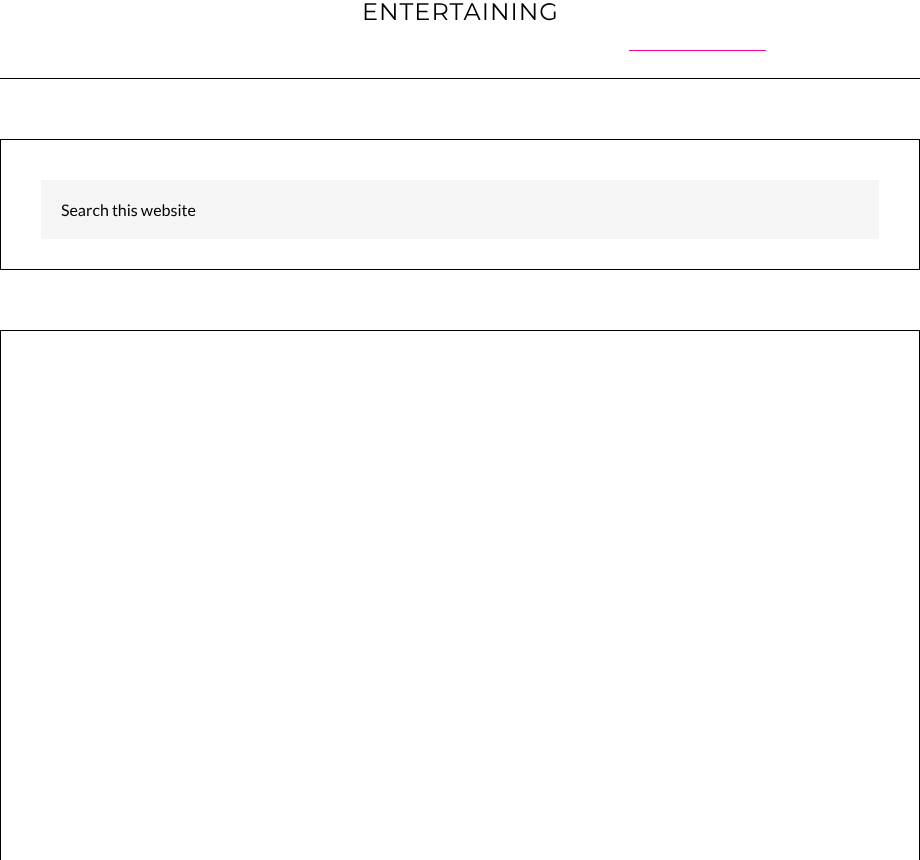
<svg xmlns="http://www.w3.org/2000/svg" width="920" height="860">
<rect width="100%" height="100%" fill="#fff"/>
<rect y="78" width="920" height="1" fill="#000"/>
<text x="362" y="20" style="font-family:Montserrat;font-size:24px;font-weight:100;letter-spacing:1px;fill:#000">ENTERTAINING</text>
<rect x="629" y="50" width="137" height="1" fill="#fa009e"/>
<rect x="0.5" y="139.5" width="919" height="130" fill="none" stroke="#000"/>
<rect x="41" y="180" width="838" height="59" fill="#f5f5f5"/>
<text x="61" y="216" style="font-family:Lato;font-size:16px;fill:#000">Search this website</text>
<rect x="0.5" y="330.5" width="919" height="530" fill="none" stroke="#000"/>
</svg>
